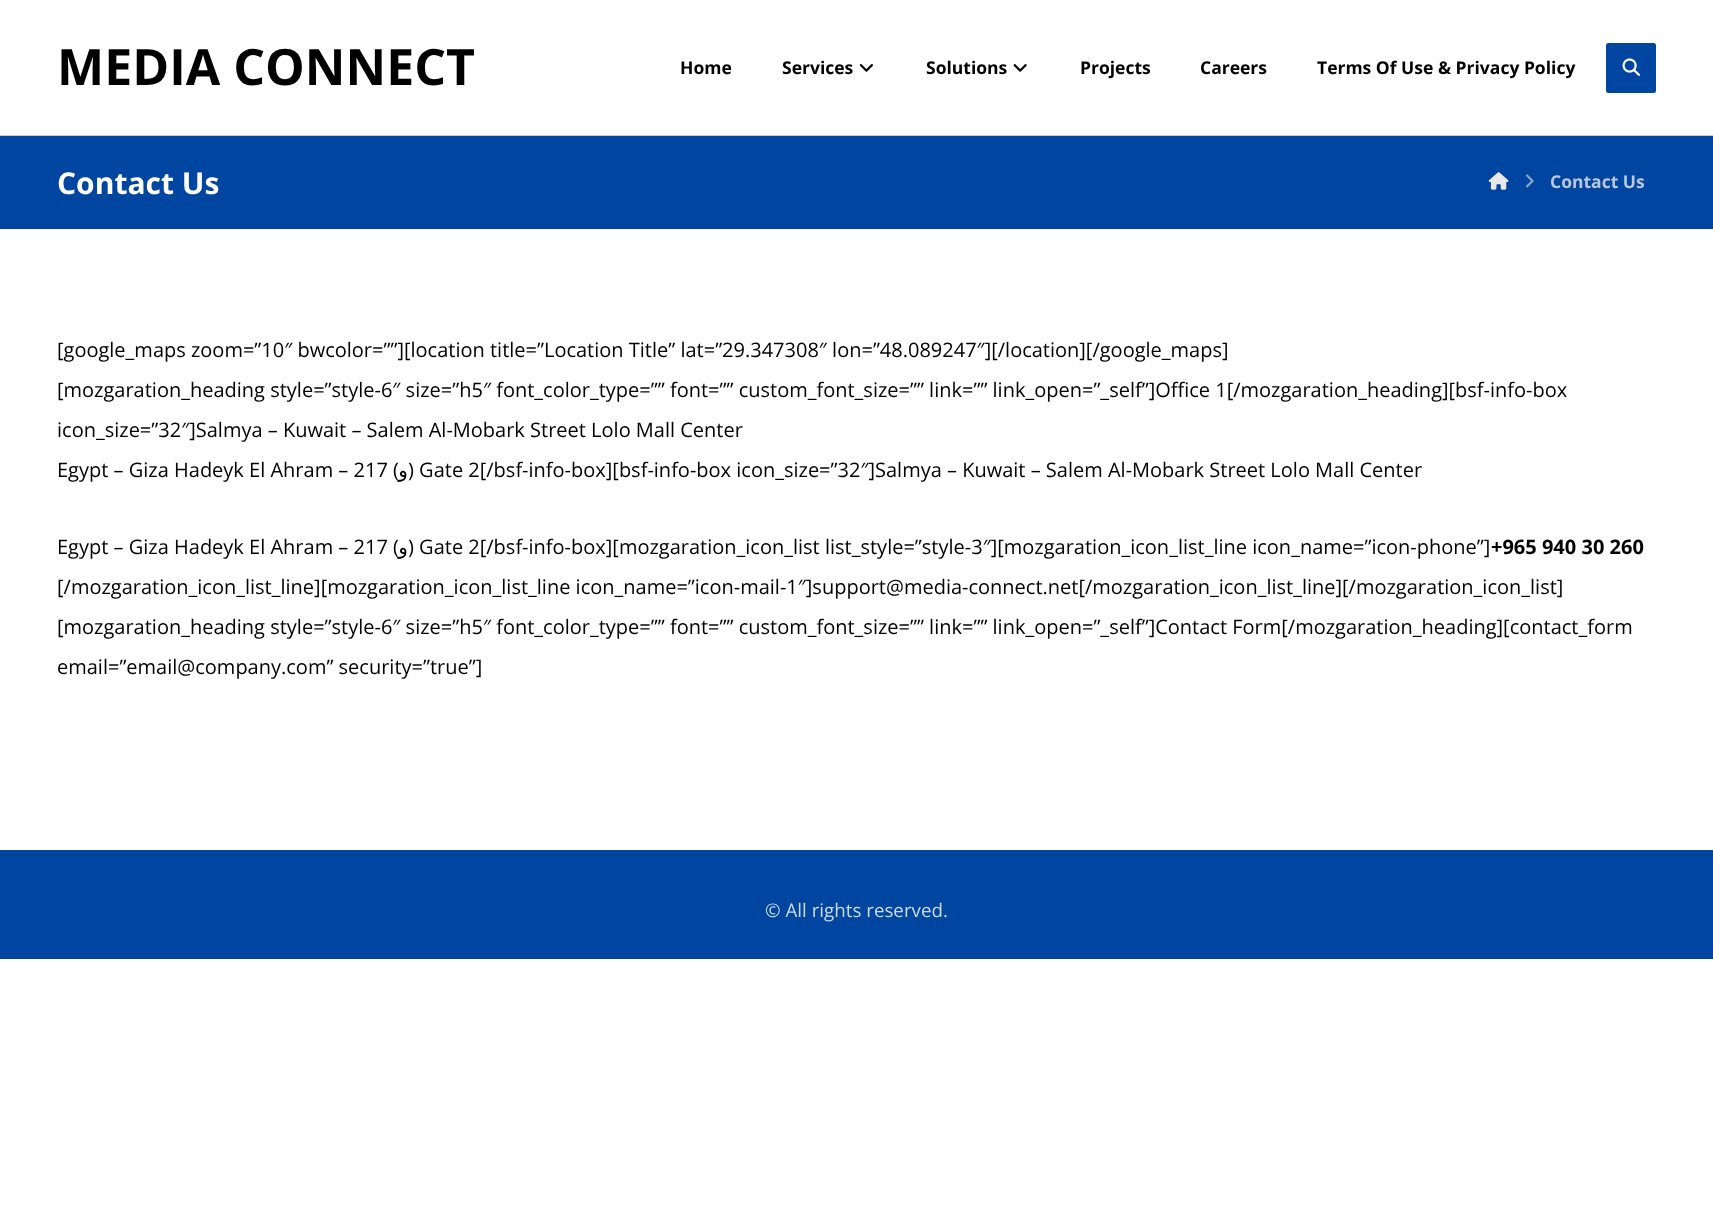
<svg xmlns="http://www.w3.org/2000/svg" width="1713" height="1207">
<rect width="100%" height="100%" fill="#fff"/>
<rect y="135" width="1713" height="1" fill="#ccc"/>
<text x="57" y="85" style="font-family:Open Sans;font-size:50px;font-weight:bold;fill:#000">MEDIA CONNECT</text>
<text x="680" y="74" style="font-family:Open Sans;font-size:17.5px;font-weight:bold;fill:#000">Home</text>
<text x="782" y="74" style="font-family:Open Sans;font-size:17.5px;font-weight:bold;fill:#000">Services</text>
<image x="859" y="64" width="14" height="8" href="media/1.png"/>
<text x="926" y="74" style="font-family:Open Sans;font-size:17.5px;font-weight:bold;fill:#000">Solutions</text>
<image x="1013" y="64" width="14" height="8" href="media/2.png"/>
<text x="1080" y="74" style="font-family:Open Sans;font-size:17.5px;font-weight:bold;fill:#000">Projects</text>
<text x="1200" y="74" style="font-family:Open Sans;font-size:17.5px;font-weight:bold;fill:#000">Careers</text>
<text x="1317" y="74" style="font-family:Open Sans;font-size:17.5px;font-weight:bold;fill:#000">Terms Of Use &amp; Privacy Policy</text>
<rect x="1606" y="43" width="50" height="50" rx="2.5" fill="#0045a0"/>
<image x="1622" y="58" width="18" height="18" href="media/3.png"/>
<rect y="136" width="1713" height="93" fill="#0045a0"/>
<rect y="229" width="1713" height="1" fill="#f4f4f4"/>
<text x="57" y="194" style="font-family:Open Sans;font-size:30px;font-weight:bold;fill:#fff">Contact Us</text>
<image x="1488" y="172" width="21" height="18" href="media/4.png"/>
<image x="1526" y="174" width="8" height="14" href="media/5.png"/>
<text x="1550" y="188" style="font-family:Open Sans;font-size:17.5px;font-weight:bold;fill:#bac7da">Contact Us</text>
<text x="57" y="357" style="font-family:Open Sans;font-size:20px;fill:#000">[google_maps zoom=”10″ bwcolor=””][location title=”Location Title” lat=”29.347308″ lon=”48.089247″][/location][/google_maps]</text>
<text x="57" y="397" style="font-family:Open Sans;font-size:20px;fill:#000">[mozgaration_heading style=”style-6″ size=”h5″ font_color_type=”” font=”” custom_font_size=”” link=”” link_open=”_self”]Office 1[/mozgaration_heading][bsf-info-box</text>
<text x="57" y="437" style="font-family:Open Sans;font-size:20px;fill:#000">icon_size=”32″]Salmya – Kuwait – Salem Al-Mobark Street Lolo Mall Center</text>
<text x="57" y="477" style="font-family:Open Sans;font-size:20px;fill:#000">Egypt – Giza Hadeyk El Ahram – 217 (</text>
<text x="408" y="477" style="font-family:DejaVu Sans;font-size:20px;direction:rtl;fill:#000">و</text>
<text x="408" y="477" style="font-family:Open Sans;font-size:20px;fill:#000">) Gate 2[/bsf-info-box][bsf-info-box icon_size=”32″]Salmya – Kuwait – Salem Al-Mobark Street Lolo Mall Center</text>
<text x="57" y="554" style="font-family:Open Sans;font-size:20px;fill:#000">Egypt – Giza Hadeyk El Ahram – 217 (</text>
<text x="408" y="554" style="font-family:DejaVu Sans;font-size:20px;direction:rtl;fill:#000">و</text>
<text x="408" y="554" style="font-family:Open Sans;font-size:20px;fill:#000">) Gate 2[/bsf-info-box][mozgaration_icon_list list_style=”style-3″][mozgaration_icon_list_line icon_name=”icon-phone”]</text>
<text x="1491" y="554" style="font-family:Open Sans;font-size:20px;font-weight:bold;fill:#000">+965 940 30 260</text>
<text x="57" y="594" style="font-family:Open Sans;font-size:20px;fill:#000">[/mozgaration_icon_list_line][mozgaration_icon_list_line icon_name=”icon-mail-1″]support@media-connect.net[/mozgaration_icon_list_line][/mozgaration_icon_list]</text>
<text x="57" y="634" style="font-family:Open Sans;font-size:20px;fill:#000">[mozgaration_heading style=”style-6″ size=”h5″ font_color_type=”” font=”” custom_font_size=”” link=”” link_open=”_self”]Contact Form[/mozgaration_heading][contact_form</text>
<text x="57" y="674" style="font-family:Open Sans;font-size:20px;fill:#000">email=”email@company.com” security=”true”]</text>
<rect y="850" width="1713" height="109" fill="#0045a0"/>
<text x="765" y="917" style="font-family:Open Sans;font-size:18.75px;fill:#ccdaec">© All rights reserved.</text>
</svg>
